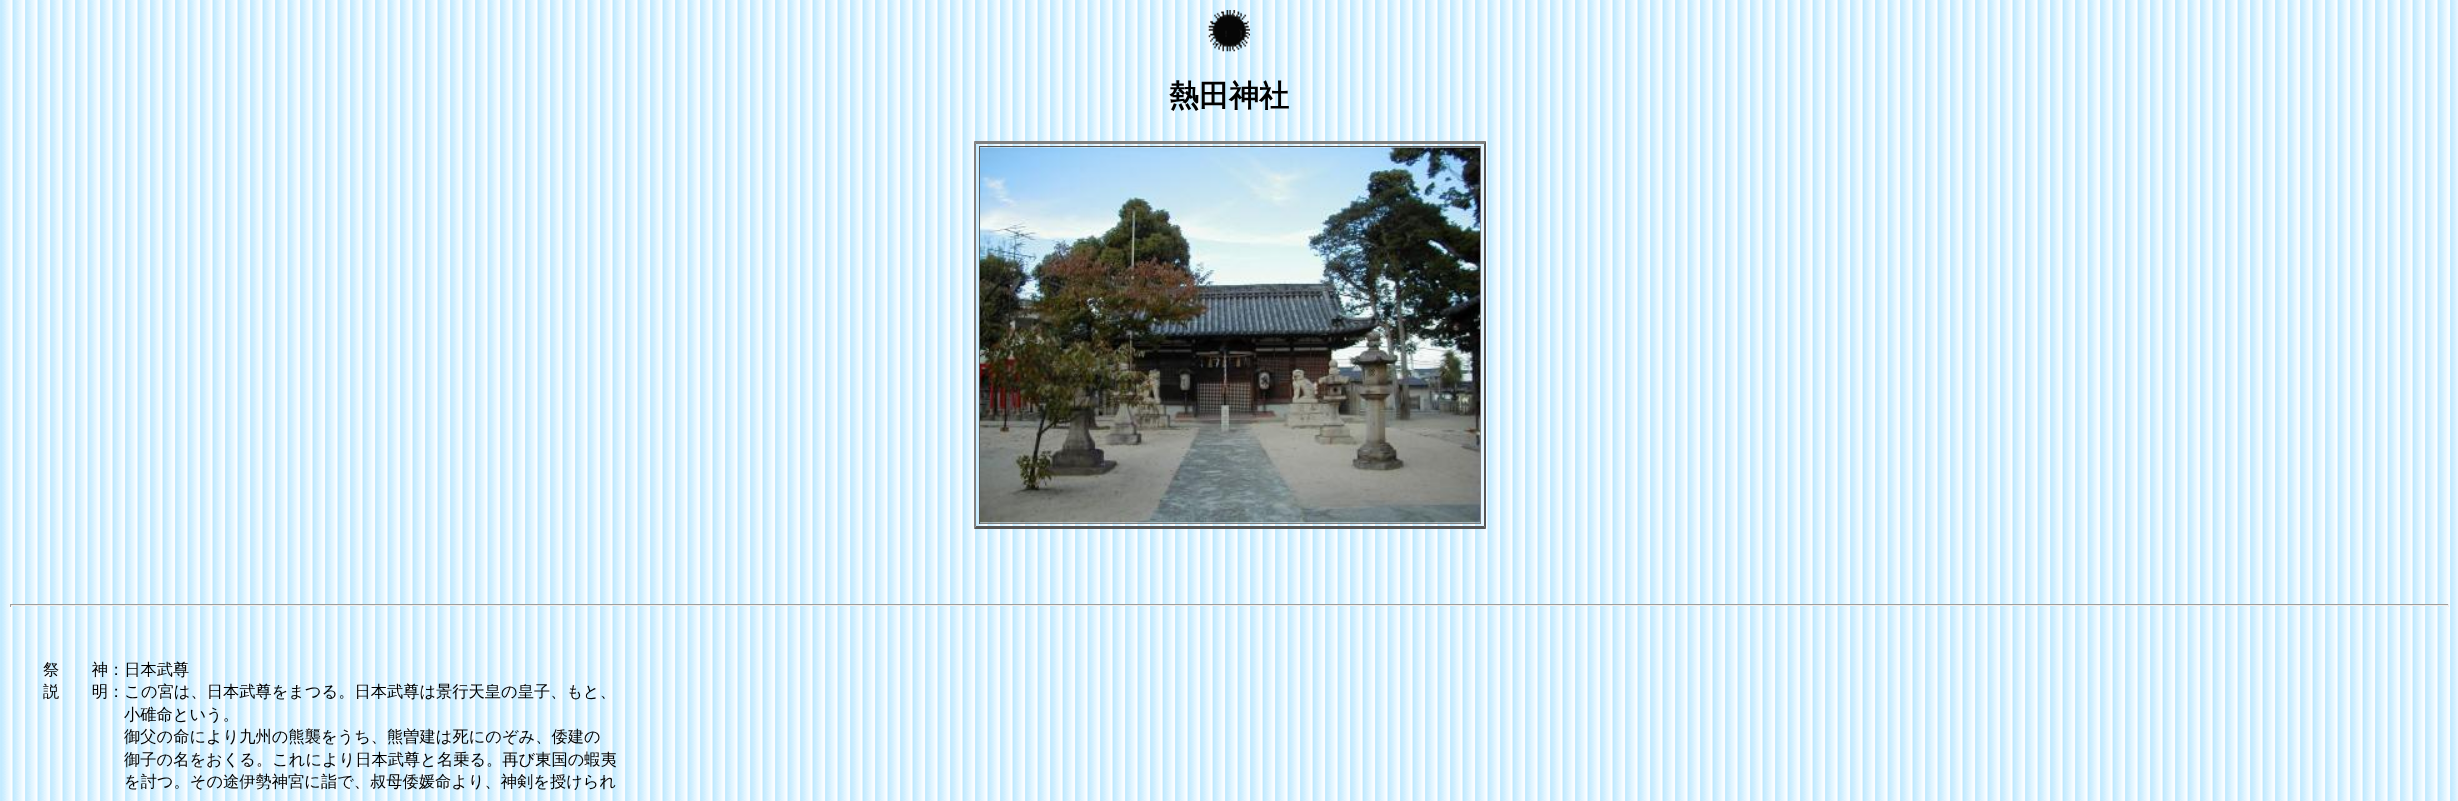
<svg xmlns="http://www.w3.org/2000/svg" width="2458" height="801">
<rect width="100%" height="100%" fill="#fff"/>
<image x="0" y="0" width="2458" height="801" href="media/1.png"/>
<image x="1208" y="10" width="42" height="42" href="media/2.png"/>
<text x="1169" y="106" style="font-family:WenQuanYi Zen Hei;font-size:30px;font-weight:bold;fill:#000">熱田神社</text>
<path d="M974 141h512l-2 3h-508z" fill="#808080"/>
<path d="M1486 141v388l-2-3v-382z" fill="#555"/>
<path d="M1486 529h-512l2-3h508z" fill="#555"/>
<path d="M974 529v-388l2 3v382z" fill="#808080"/>
<rect x="979" y="146" width="502" height="1" fill="#555"/>
<rect x="1480" y="146" width="1" height="378" fill="#808080"/>
<rect x="979" y="523" width="502" height="1" fill="#808080"/>
<rect x="979" y="146" width="1" height="378" fill="#555"/>
<image x="980" y="147" width="500" height="376" href="media/3.png"/>
<rect x="10" y="604" width="2439" height="1" fill="#9f9f9f"/>
<rect x="2448" y="604" width="1" height="3" fill="#eee"/>
<rect x="10" y="605" width="2439" height="1" fill="#eee"/>
<rect x="10" y="604" width="1" height="3" fill="#9f9f9f"/>
<text x="43" y="675" style="font-family:WenQuanYi Zen Hei;font-size:16.25px;font-weight:500;fill:#000">祭　　神：日本武尊</text>
<text x="43" y="697" style="font-family:WenQuanYi Zen Hei;font-size:16.25px;font-weight:500;fill:#000">説　　明：この宮は、日本武尊をまつる。日本武尊は景行天皇の皇子、もと、</text>
<text x="124" y="720" style="font-family:WenQuanYi Zen Hei;font-size:16.25px;font-weight:500;fill:#000">小碓命という。</text>
<text x="124" y="742" style="font-family:WenQuanYi Zen Hei;font-size:16.25px;font-weight:500;fill:#000">御父の命により九州の熊襲をうち、熊曽建は死にのぞみ、倭建の</text>
<text x="124" y="765" style="font-family:WenQuanYi Zen Hei;font-size:16.25px;font-weight:500;fill:#000">御子の名をおくる。これにより日本武尊と名乗る。再び東国の蝦夷</text>
<text x="124" y="787" style="font-family:WenQuanYi Zen Hei;font-size:16.25px;font-weight:500;fill:#000">を討つ。その途伊勢神宮に詣で、叔母倭媛命より、神剣を授けられ</text>
</svg>
